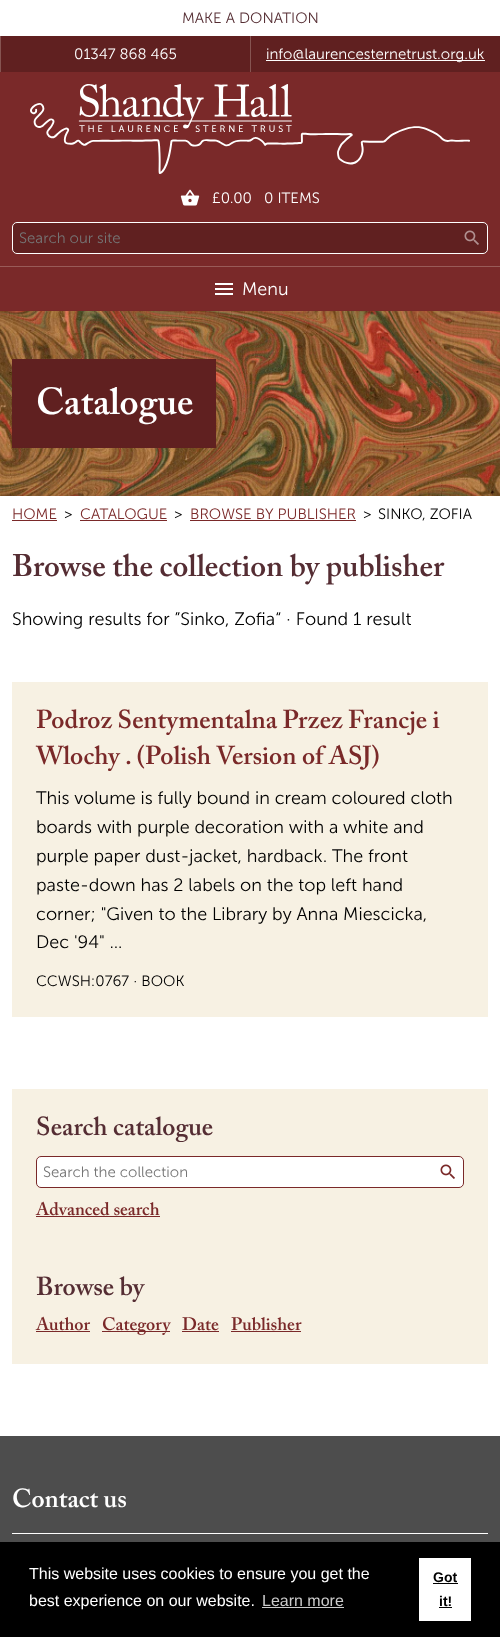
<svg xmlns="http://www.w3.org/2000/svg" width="500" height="1637">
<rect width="100%" height="100%" fill="#fff"/>
<rect x="1" y="36" width="499" height="36" fill="#602020"/>
<text x="182" y="23" style="font-family:'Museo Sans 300';font-size:15px;font-weight:300;fill:#552d33">MAKE A DONATION</text>
<rect y="36" width="1" height="36" fill="#865451"/>
<text x="74" y="59" style="font-family:'Museo Sans 300';font-size:15px;font-weight:300;fill:#fff">01347 868 465</text>
<rect x="250" y="36" width="1" height="36" fill="#865451"/>
<rect x="266" y="60" width="219" height="1" fill="#fff"/>
<text x="266" y="59" style="font-family:'Museo Sans 300';font-size:15px;font-weight:300;fill:#fff">info@laurencesternetrust.org.uk</text>
<rect y="72" width="500" height="239" fill="#7a2929"/>
<image x="30" y="84" width="440" height="90" href="media/1.png"/>
<image x="180" y="189" width="20" height="17" href="media/2.png"/>
<text x="212" y="203" style="font-family:'Museo Sans 300';font-size:15px;font-weight:300;fill:#fff">£0.00</text>
<text x="264" y="203" style="font-family:'Museo Sans 300';font-size:15px;font-weight:300;fill:#fff">0 ITEMS</text>
<rect x="12.5" y="222.5" width="475" height="31" rx="4.5" fill="#602020" stroke="#fff"/>
<text x="19" y="243" style="font-family:'Museo Sans 300';font-size:15px;font-weight:300;fill:#757575">Search our site</text>
<image x="464" y="230" width="15" height="15" href="media/3.png"/>
<rect y="266" width="500" height="1" fill="#995b58"/>
<image x="215" y="283" width="18" height="12" href="media/4.png"/>
<text x="242" y="295" style="font-family:'Museo Sans 300';font-size:18px;font-weight:300;fill:#fff">Menu</text>
<image x="0" y="311" width="500" height="185" href="media/5.png"/>
<rect x="12" y="359" width="204" height="89" fill="#602020"/>
<text x="36" y="414" style="font-family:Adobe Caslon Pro;font-size:37.5px;font-weight:600;fill:#fff">Catalogue</text>
<text x="12" y="519" style="font-family:'Museo Sans 300';font-size:15px;font-weight:300;fill:#7a2929">HOME</text>
<rect x="12" y="520" width="45" height="1" fill="#7a2929"/>
<text x="64" y="519" style="font-family:'Museo Sans 300';font-size:15px;font-weight:300;fill:#000">&gt;</text>
<text x="80" y="519" style="font-family:'Museo Sans 300';font-size:15px;font-weight:300;fill:#7a2929">CATALOGUE</text>
<rect x="80" y="520" width="87" height="1" fill="#7a2929"/>
<text x="174" y="519" style="font-family:'Museo Sans 300';font-size:15px;font-weight:300;fill:#000">&gt;</text>
<text x="190" y="519" style="font-family:'Museo Sans 300';font-size:15px;font-weight:300;fill:#7a2929">BROWSE BY PUBLISHER</text>
<rect x="190" y="520" width="166" height="1" fill="#7a2929"/>
<text x="363" y="519" style="font-family:'Museo Sans 300';font-size:15px;font-weight:300;fill:#000">&gt;</text>
<text x="378" y="519" style="font-family:'Museo Sans 300';font-size:15px;font-weight:300;fill:#000">SINKO, ZOFIA</text>
<text x="12" y="576" style="font-family:Adobe Caslon Pro;font-size:31.1px;font-weight:600;fill:#552d33">Browse the collection by publisher</text>
<text x="12" y="625" style="font-family:'Museo Sans 300';font-size:18px;font-weight:300;fill:#000">Showing results for ”Sinko, Zofia“ · Found 1 result</text>
<rect x="12" y="682" width="476" height="335" fill="#f7f1e3"/>
<text x="36" y="728" style="font-family:Adobe Caslon Pro;font-size:25.9px;font-weight:600;fill:#7a2929">Podroz Sentymentalna Przez Francje i</text>
<text x="36" y="764" style="font-family:Adobe Caslon Pro;font-size:25.9px;font-weight:600;fill:#7a2929">Wlochy . (Polish Version of ASJ)</text>
<text x="36" y="804" style="font-family:'Museo Sans 300';font-size:18px;font-weight:300;fill:#000">This volume is fully bound in cream coloured cloth</text>
<text x="36" y="833" style="font-family:'Museo Sans 300';font-size:18px;font-weight:300;fill:#000">boards with purple decoration with a white and</text>
<text x="36" y="862" style="font-family:'Museo Sans 300';font-size:18px;font-weight:300;fill:#000">purple paper dust-jacket, hardback. The front</text>
<text x="36" y="891" style="font-family:'Museo Sans 300';font-size:18px;font-weight:300;fill:#000">paste-down has 2 labels on the top left hand</text>
<text x="36" y="920" style="font-family:'Museo Sans 300';font-size:18px;font-weight:300;fill:#000">corner; "Given to the Library by Anna Miescicka,</text>
<text x="36" y="948" style="font-family:'Museo Sans 300';font-size:18px;font-weight:300;fill:#000">Dec '94" …</text>
<text x="36" y="986" style="font-family:'Museo Sans 300';font-size:15px;font-weight:300;fill:#000">CCWSH:0767 · BOOK</text>
<rect x="12" y="1089" width="476" height="275" fill="#f7f1e3"/>
<text x="36" y="1135" style="font-family:Adobe Caslon Pro;font-size:25.9px;font-weight:600;fill:#552d33">Search catalogue</text>
<rect x="36.5" y="1156.5" width="427" height="31" rx="4.5" fill="#fff" stroke="#7a2929"/>
<text x="43" y="1177" style="font-family:'Museo Sans 300';font-size:15px;font-weight:300;fill:#757575">Search the collection</text>
<image x="440" y="1164" width="15" height="15" href="media/6.png"/>
<text x="36" y="1215" style="font-family:Adobe Caslon Pro;font-size:18px;font-weight:600;fill:#7a2929">Advanced search</text>
<rect x="36" y="1216" width="124" height="1" fill="#7a2929"/>
<text x="36" y="1295" style="font-family:Adobe Caslon Pro;font-size:25.9px;font-weight:600;fill:#552d33">Browse by</text>
<text x="36" y="1330" style="font-family:Adobe Caslon Pro;font-size:18px;font-weight:600;fill:#7a2929">Author</text>
<rect x="36" y="1331" width="54" height="1" fill="#7a2929"/>
<rect x="102" y="1331" width="68" height="1" fill="#7a2929"/>
<text x="102" y="1330" style="font-family:Adobe Caslon Pro;font-size:18px;font-weight:600;fill:#7a2929">Category</text>
<text x="182" y="1330" style="font-family:Adobe Caslon Pro;font-size:18px;font-weight:600;fill:#7a2929">Date</text>
<rect x="182" y="1331" width="37" height="1" fill="#7a2929"/>
<text x="231" y="1330" style="font-family:Adobe Caslon Pro;font-size:18px;font-weight:600;fill:#7a2929">Publisher</text>
<rect x="231" y="1331" width="70" height="1" fill="#7a2929"/>
<rect y="1436" width="500" height="106" fill="#4d4d4d"/>
<rect x="12" y="1533" width="476" height="1" fill="#fff"/>
<text x="12" y="1507" style="font-family:Adobe Caslon Pro;font-size:25.9px;font-weight:600;fill:#fff">Contact us</text>
<rect y="1542" width="500" height="95" fill="#000"/>
<text x="29" y="1579" style="font-family:Liberation Sans;font-size:16px;fill:#fff">This website uses cookies to ensure you get the</text>
<text x="29" y="1606" style="font-family:Liberation Sans;font-size:16px;fill:#fff">best experience on our website.</text>
<text x="262" y="1606" style="font-family:Liberation Sans;font-size:16px;fill:#ccc">Learn more</text>
<rect x="262" y="1607" width="82" height="1" fill="#ccc"/>
<rect x="419" y="1558" width="52" height="63" fill="#fff"/>
<text x="433" y="1582" style="font-family:Liberation Sans;font-size:14px;font-weight:bold;fill:#000">Got</text>
<rect x="433" y="1583" width="25" height="1" fill="#000"/>
<text x="439" y="1606" style="font-family:Liberation Sans;font-size:14px;font-weight:bold;fill:#000">it!</text>
<rect x="439" y="1607" width="13" height="1" fill="#000"/>
</svg>
